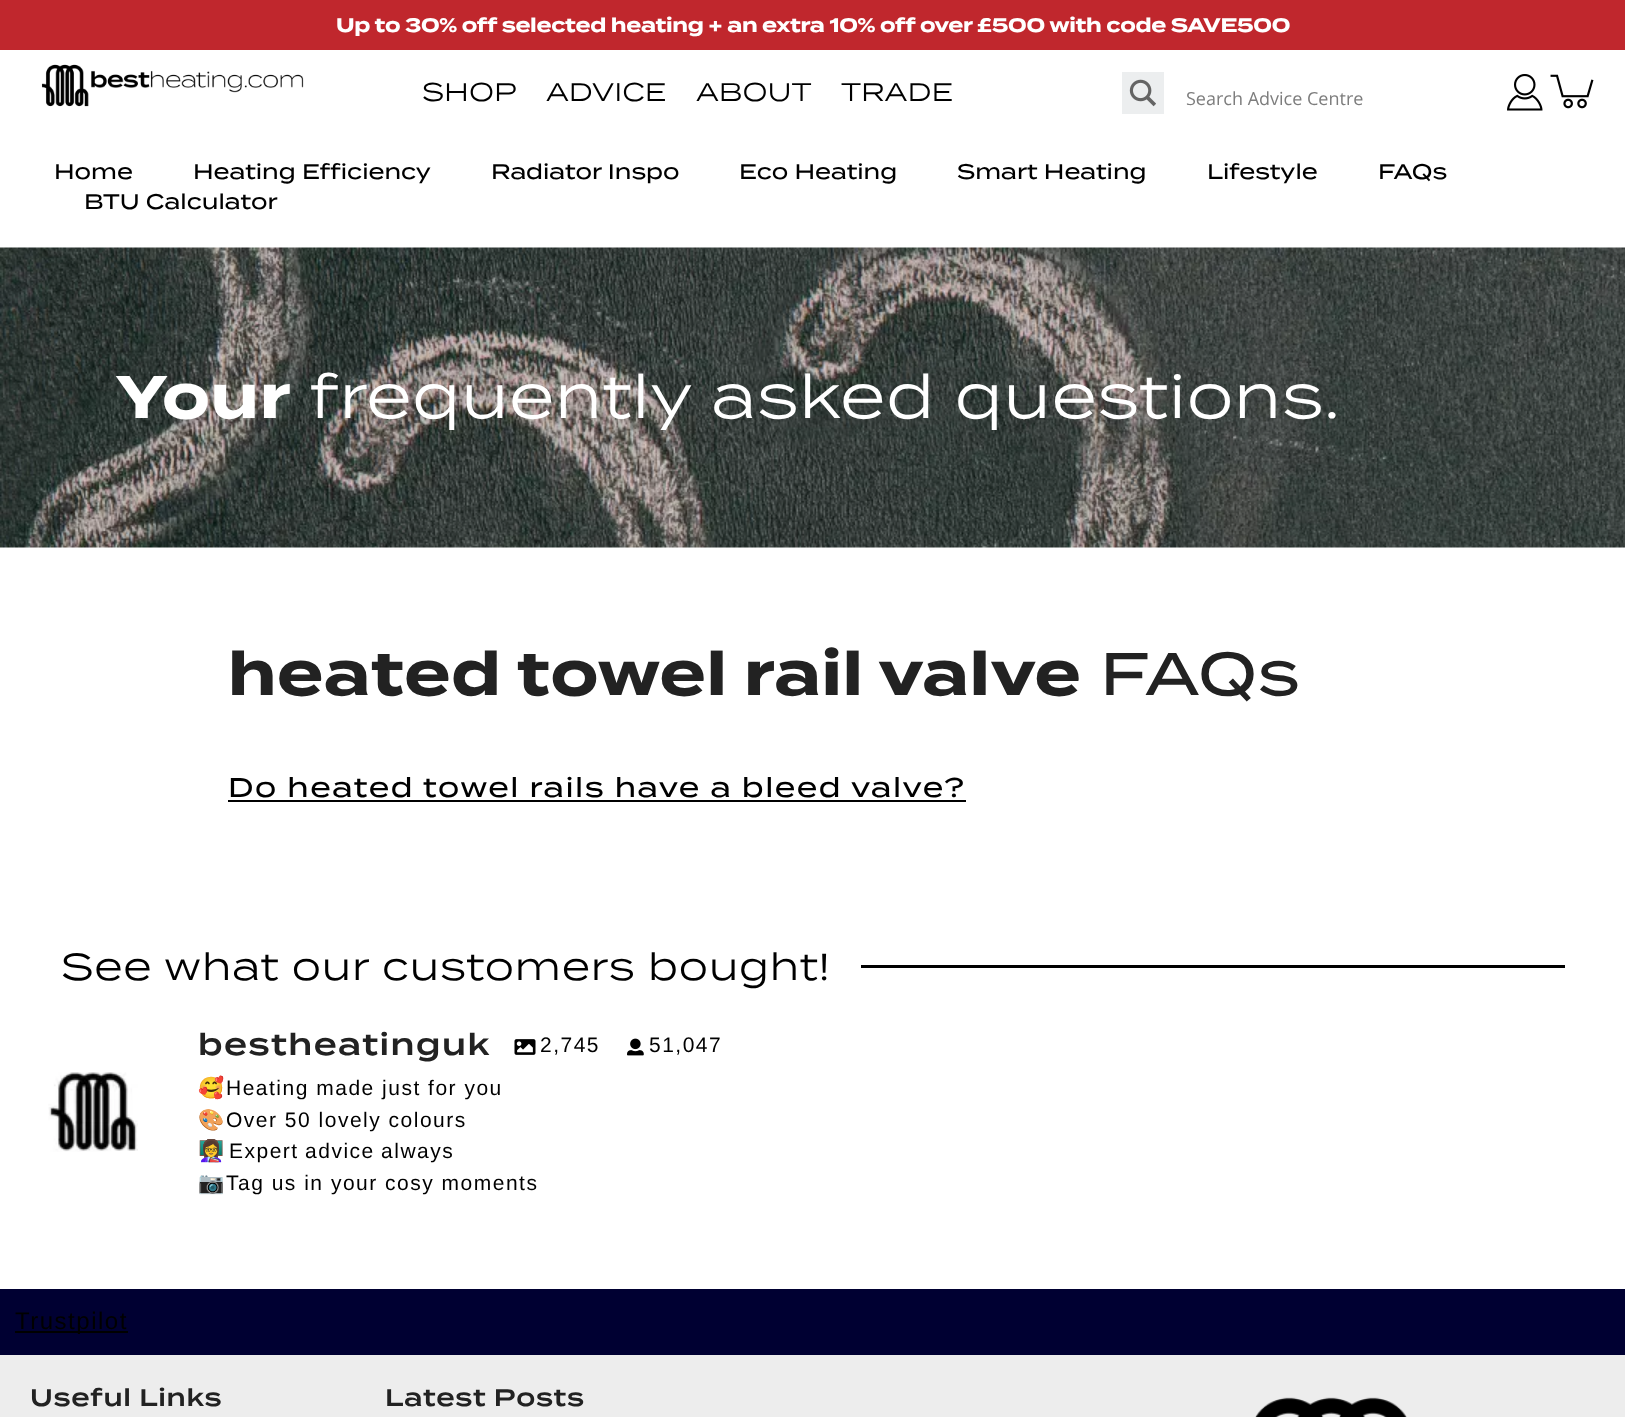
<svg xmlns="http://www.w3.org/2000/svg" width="1625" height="1417">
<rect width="100%" height="100%" fill="#fff"/>
<rect width="1625" height="50" fill="#c0272d"/>
<text x="336" y="32" style="font-family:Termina;font-size:19.5px;font-weight:bold;letter-spacing:-0.3px;fill:#fff">Up to 30% off selected heating + an extra 10% off over £500 with code SAVE500</text>
<image x="41" y="64" width="263" height="43" href="media/1.png"/>
<text x="422" y="101" style="font-family:Termina;font-size:25.5px;fill:#000">SHOP</text>
<text x="546" y="101" style="font-family:Termina;font-size:25.5px;fill:#000">ADVICE</text>
<text x="696" y="101" style="font-family:Termina;font-size:25.5px;fill:#000">ABOUT</text>
<text x="841" y="101" style="font-family:Termina;font-size:25.5px;fill:#000">TRADE</text>
<rect x="1122" y="72" width="42" height="42" fill="#eceeef"/>
<image x="1129" y="79" width="27" height="28" href="media/2.png"/>
<text x="1186" y="105" style="font-family:Open Sans;font-size:18px;fill:#7d7d7d">Search Advice Centre</text>
<image x="1507" y="74" width="36" height="37" href="media/3.png"/>
<image x="1550" y="74" width="44" height="35" href="media/4.png"/>
<text x="54" y="179" style="font-family:Termina;font-size:21px;font-weight:500;fill:#000">Home</text>
<text x="193" y="179" style="font-family:Termina;font-size:21px;font-weight:500;fill:#000">Heating Efficiency</text>
<text x="491" y="179" style="font-family:Termina;font-size:21px;font-weight:500;fill:#000">Radiator Inspo</text>
<text x="739" y="179" style="font-family:Termina;font-size:21px;font-weight:500;fill:#000">Eco Heating</text>
<text x="957" y="179" style="font-family:Termina;font-size:21px;font-weight:500;fill:#000">Smart Heating</text>
<text x="1207" y="179" style="font-family:Termina;font-size:21px;font-weight:500;fill:#000">Lifestyle</text>
<text x="1378" y="179" style="font-family:Termina;font-size:21px;font-weight:500;fill:#000">FAQs</text>
<text x="84" y="209" style="font-family:Termina;font-size:21px;font-weight:500;fill:#000">BTU Calculator</text>
<image x="0" y="247" width="1625" height="301" href="media/5.png"/>
<text x="116" y="418" style="font-family:Termina;font-size:60px;font-weight:bold;letter-spacing:0.75px;fill:#fff">Your</text>
<text x="310" y="418" style="font-family:Termina;font-size:60px;letter-spacing:0.75px;fill:#fff">frequently asked questions.</text>
<text x="228" y="695" style="font-family:Termina;font-size:60px;font-weight:bold;letter-spacing:0.75px;fill:#222">heated towel rail valve</text>
<text x="1100" y="695" style="font-family:Termina;font-size:60px;font-weight:500;letter-spacing:0.75px;fill:#222">FAQs</text>
<text x="228" y="797" style="font-family:Termina;font-size:27px;font-weight:500;letter-spacing:1.5px;fill:#000">Do heated towel rails have a bleed valve?</text>
<rect x="228" y="800" width="738" height="2" fill="#000"/>
<text x="61" y="980" style="font-family:Termina;font-size:37.5px;letter-spacing:0.75px;fill:#000">See what our customers bought!</text>
<rect x="861" y="965" width="704" height="3" fill="#000"/>
<image x="48" y="1072" width="90" height="80" href="media/6.png"/>
<text x="198" y="1055" style="font-family:Termina;font-size:30px;font-weight:600;letter-spacing:1.5px;fill:#222">bestheatinguk</text>
<image x="514" y="1039" width="22" height="16" href="media/7.png"/>
<text x="540" y="1052" style="font-family:Liberation Sans;font-size:21px;letter-spacing:1.5px;fill:#000">2,745</text>
<image x="627" y="1038" width="17" height="18" href="media/8.png"/>
<text x="649" y="1052" style="font-family:Liberation Sans;font-size:21px;letter-spacing:1.5px;fill:#000">51,047</text>
<text x="198" y="1095" style="font-family:Noto Color Emoji;font-size:21px;letter-spacing:1.5px;fill:#000">🥰</text>
<text x="226" y="1095" style="font-family:Liberation Sans;font-size:21px;letter-spacing:1.5px;fill:#000">Heating made just for you</text>
<text x="198" y="1127" style="font-family:Noto Color Emoji;font-size:21px;letter-spacing:1.5px;fill:#000">🎨</text>
<text x="226" y="1127" style="font-family:Liberation Sans;font-size:21px;letter-spacing:1.5px;fill:#000">Over 50 lovely colours</text>
<text x="198" y="1158" style="font-family:Noto Color Emoji;font-size:21px;letter-spacing:1.5px;fill:#000">👩‍🏫</text>
<text x="229" y="1158" word-spacing="-1" style="font-family:Liberation Sans;font-size:21px;letter-spacing:1.5px;fill:#000">Expert advice always</text>
<text x="198" y="1190" style="font-family:Noto Color Emoji;font-size:21px;letter-spacing:1.5px;fill:#000">📷</text>
<text x="226" y="1190" style="font-family:Liberation Sans;font-size:21px;letter-spacing:1.5px;fill:#000">Tag us in your cosy moments</text>
<rect y="1289" width="1625" height="66" fill="#000032"/>
<rect x="15" y="1331" width="113" height="2" fill="#000"/>
<text x="15" y="1329" style="font-family:Liberation Sans;font-size:24px;letter-spacing:1.5px;fill:#000">Trustpilot</text>
<rect y="1355" width="1625" height="62" fill="#ededed"/>
<text x="30" y="1406" style="font-family:Termina;font-size:24px;font-weight:600;letter-spacing:0.75px;fill:#222">Useful Links</text>
<text x="385" y="1406" style="font-family:Termina;font-size:24px;font-weight:600;letter-spacing:0.75px;fill:#222">Latest Posts</text>
<image x="1255" y="1397" width="152" height="20" href="media/9.png"/>
</svg>
